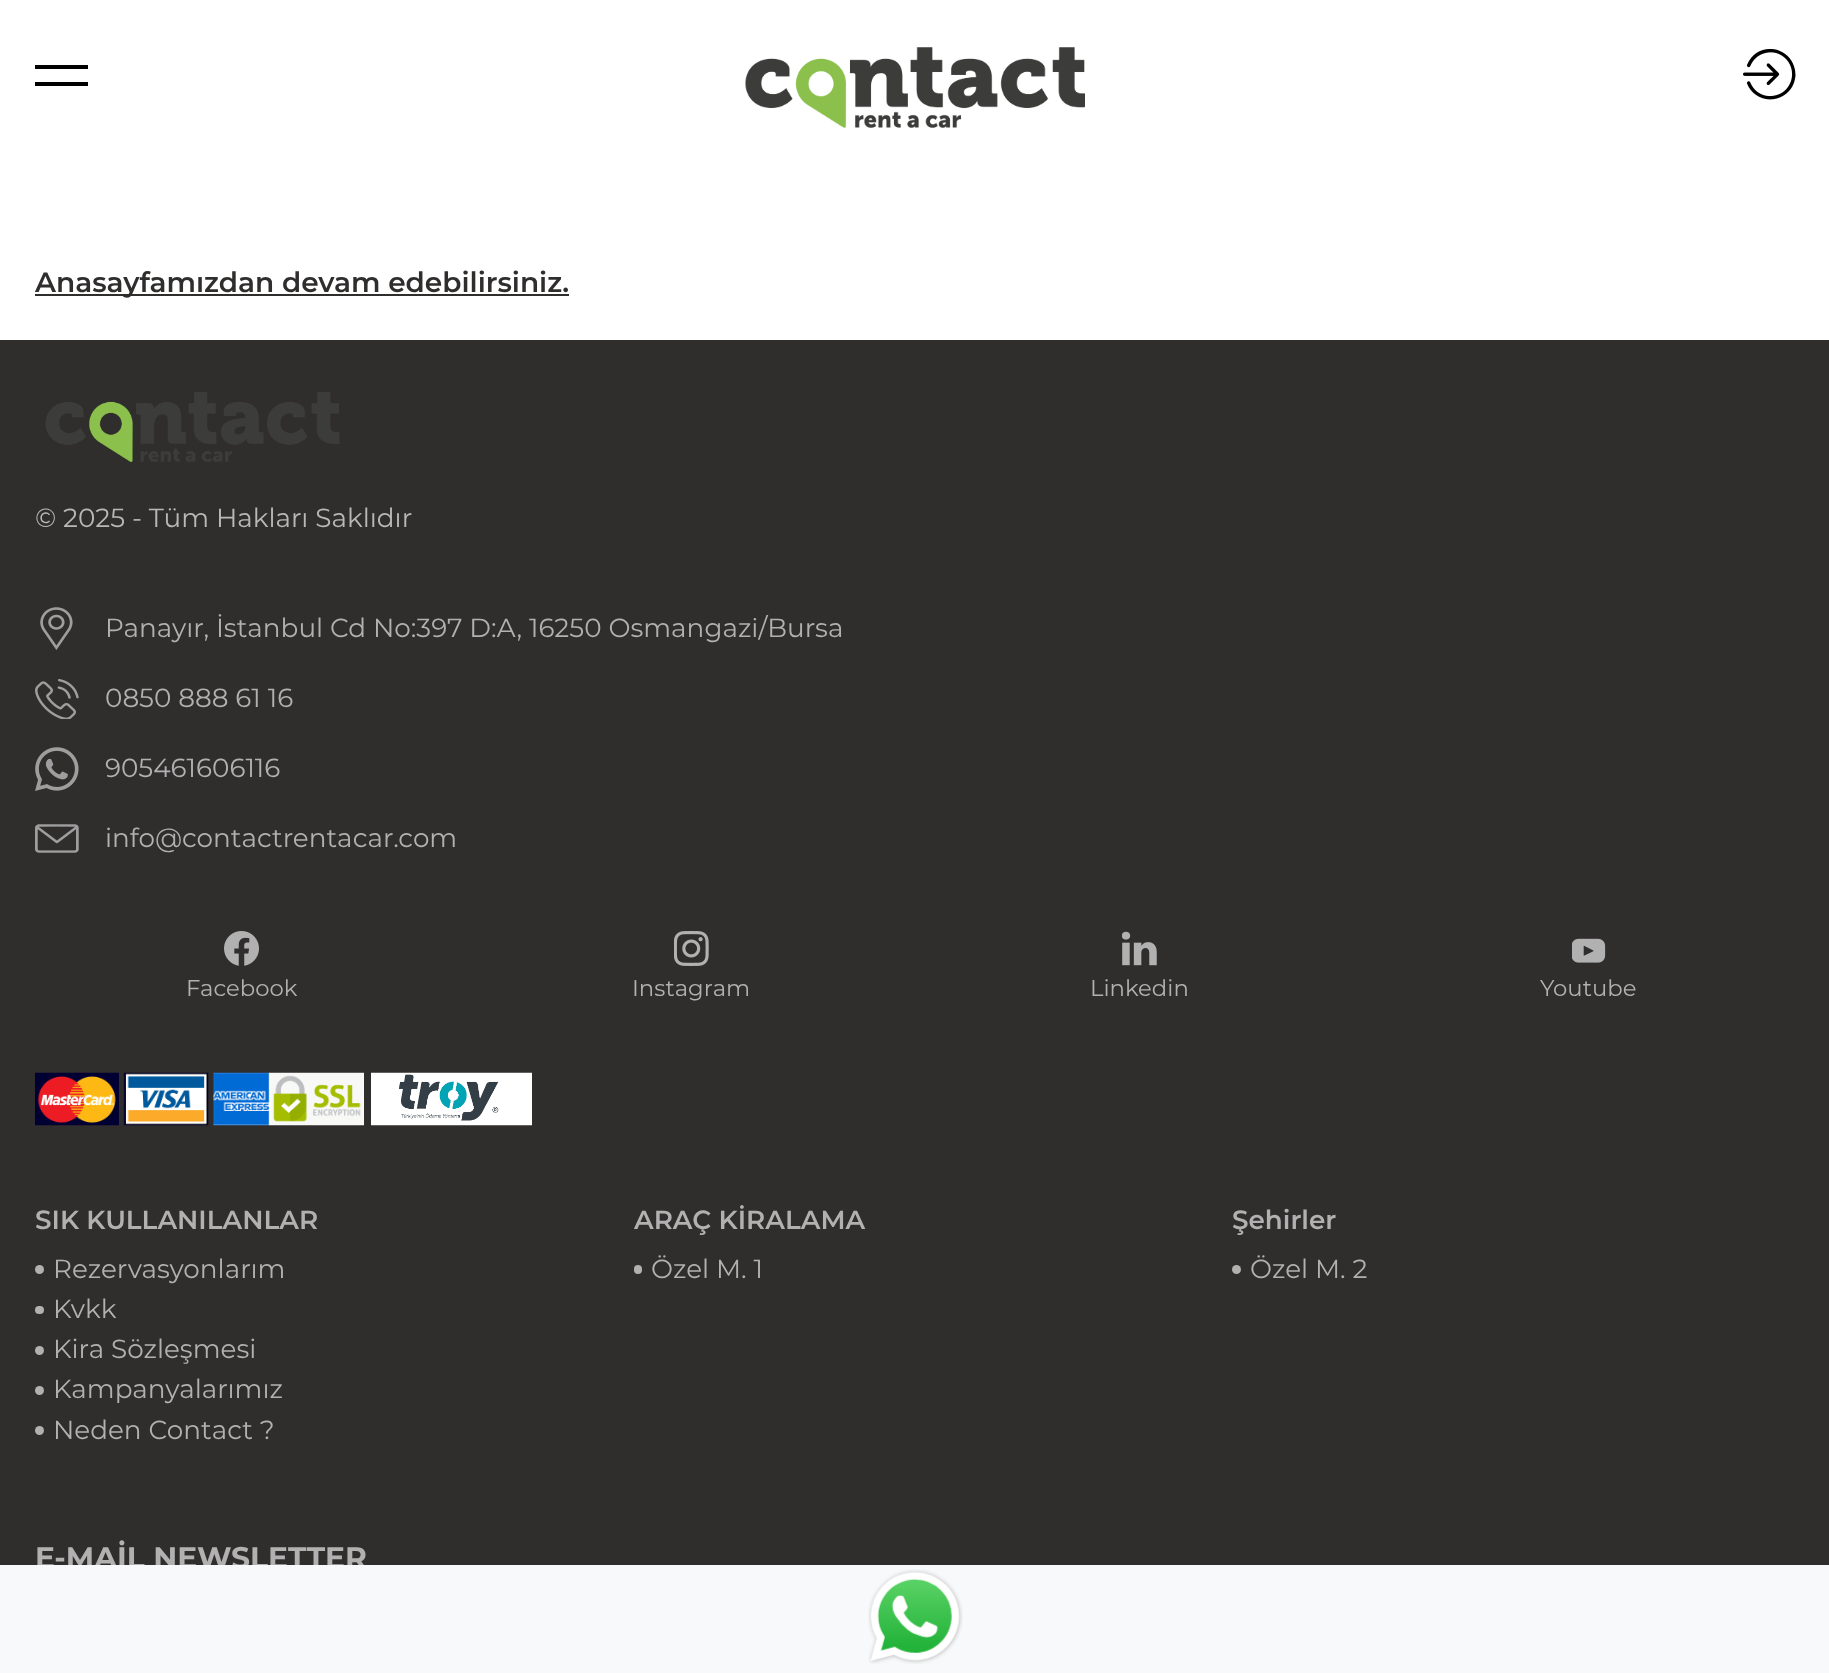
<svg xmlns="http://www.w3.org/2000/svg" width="1829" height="1673">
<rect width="100%" height="100%" fill="#fff"/>
<rect x="35" y="65" width="53" height="4" fill="#000"/>
<rect x="35" y="82" width="53" height="4" fill="#000"/>
<image x="745" y="47" width="340" height="81" href="media/1.png"/>
<image x="1743" y="49" width="53" height="51" href="media/2.png"/>
<rect x="35" y="294" width="534" height="2" fill="#302d2d"/>
<text x="35" y="292" style="font-family:Montserrat;font-size:28px;font-weight:600;fill:#302d2d">Anasayfamızdan devam edebilirsiniz.</text>
<rect y="340" width="1829" height="1225" fill="#302d2d"/>
<image x="45" y="392" width="295" height="70" href="media/3.png"/>
<text x="35" y="527" style="font-family:Montserrat;font-size:26.25px;fill:#b8b8b8">© 2025 - Tüm Hakları Saklıdır</text>
<image x="40" y="607" width="33" height="43" href="media/4.png"/>
<text x="105" y="637" style="font-family:Montserrat;font-size:26.25px;fill:#b1b1b1">Panayır, İstanbul Cd No:397 D:A, 16250 Osmangazi̇/Bursa</text>
<image x="35" y="679" width="44" height="40" href="media/5.png"/>
<text x="105" y="707" style="font-family:Montserrat;font-size:26.25px;fill:#b1b1b1">0850 888 61 16</text>
<image x="35" y="747" width="44" height="44" href="media/6.png"/>
<text x="105" y="777" style="font-family:Montserrat;font-size:26.25px;fill:#b1b1b1">905461606116</text>
<image x="35" y="824" width="44" height="29" href="media/7.png"/>
<text x="105" y="847" style="font-family:Montserrat;font-size:26.25px;fill:#b1b1b1">info@contactrentacar.com</text>
<image x="224" y="931" width="35" height="35" href="media/8.png"/>
<text x="186" y="996" style="font-family:Montserrat;font-size:22.75px;fill:#b1b1b1">Facebook</text>
<image x="674" y="931" width="35" height="35" href="media/9.png"/>
<text x="632" y="996" style="font-family:Montserrat;font-size:22.75px;fill:#b1b1b1">Instagram</text>
<image x="1122" y="931" width="35" height="35" href="media/10.png"/>
<text x="1090" y="996" style="font-family:Montserrat;font-size:22.75px;fill:#b1b1b1">Linkedin</text>
<image x="1572" y="938" width="34" height="25" href="media/11.png"/>
<text x="1540" y="996" style="font-family:Montserrat;font-size:22.75px;fill:#b1b1b1">Youtube</text>
<image x="35" y="1072" width="174" height="54" href="media/12.png"/>
<image x="213" y="1072" width="151" height="54" href="media/13.png"/>
<image x="371" y="1072" width="161" height="54" href="media/14.png"/>
<text x="35" y="1229" style="font-family:Montserrat;font-size:26.25px;font-weight:600;fill:#b1b1b1">SIK KULLANILANLAR</text>
<circle cx="39.5" cy="1269.5" r="4.5" fill="#b1b1b1"/>
<text x="53" y="1278" style="font-family:Montserrat;font-size:26.25px;fill:#b1b1b1">Rezervasyonlarım</text>
<rect x="35" y="1306" width="9" height="8" rx="4" fill="#b1b1b1"/>
<text x="53" y="1318" style="font-family:Montserrat;font-size:26.25px;fill:#b1b1b1">Kvkk</text>
<circle cx="39.5" cy="1350.5" r="4.5" fill="#b1b1b1"/>
<text x="53" y="1358" style="font-family:Montserrat;font-size:26.25px;fill:#b1b1b1">Kira Sözleşmesi</text>
<circle cx="39.5" cy="1390.5" r="4.5" fill="#b1b1b1"/>
<text x="53" y="1398" style="font-family:Montserrat;font-size:26.25px;fill:#b1b1b1">Kampanyalarımız</text>
<circle cx="39.5" cy="1430.5" r="4.5" fill="#b1b1b1"/>
<text x="53" y="1439" style="font-family:Montserrat;font-size:26.25px;fill:#b1b1b1">Neden Contact ?</text>
<text x="634" y="1229" style="font-family:Montserrat;font-size:26.25px;font-weight:600;fill:#b1b1b1">ARAÇ KİRALAMA</text>
<rect x="634" y="1265" width="8" height="9" rx="4" fill="#b1b1b1"/>
<text x="651" y="1278" style="font-family:Montserrat;font-size:26.25px;fill:#b1b1b1">Özel M. 1</text>
<text x="1232" y="1229" style="font-family:Montserrat;font-size:26.25px;font-weight:600;fill:#b1b1b1">Şehirler</text>
<circle cx="1236.5" cy="1269.5" r="4.5" fill="#b1b1b1"/>
<text x="1250" y="1278" style="font-family:Montserrat;font-size:26.25px;fill:#b1b1b1">Özel M. 2</text>
<text x="35" y="1568" style="font-family:Montserrat;font-size:29.75px;font-weight:bold;fill:#b1b1b1">E-MAİL NEWSLETTER</text>
<rect y="1565" width="1829" height="108" fill="#f8f9fa"/>
<image x="868" y="1569" width="95" height="95" href="media/15.png"/>
</svg>
